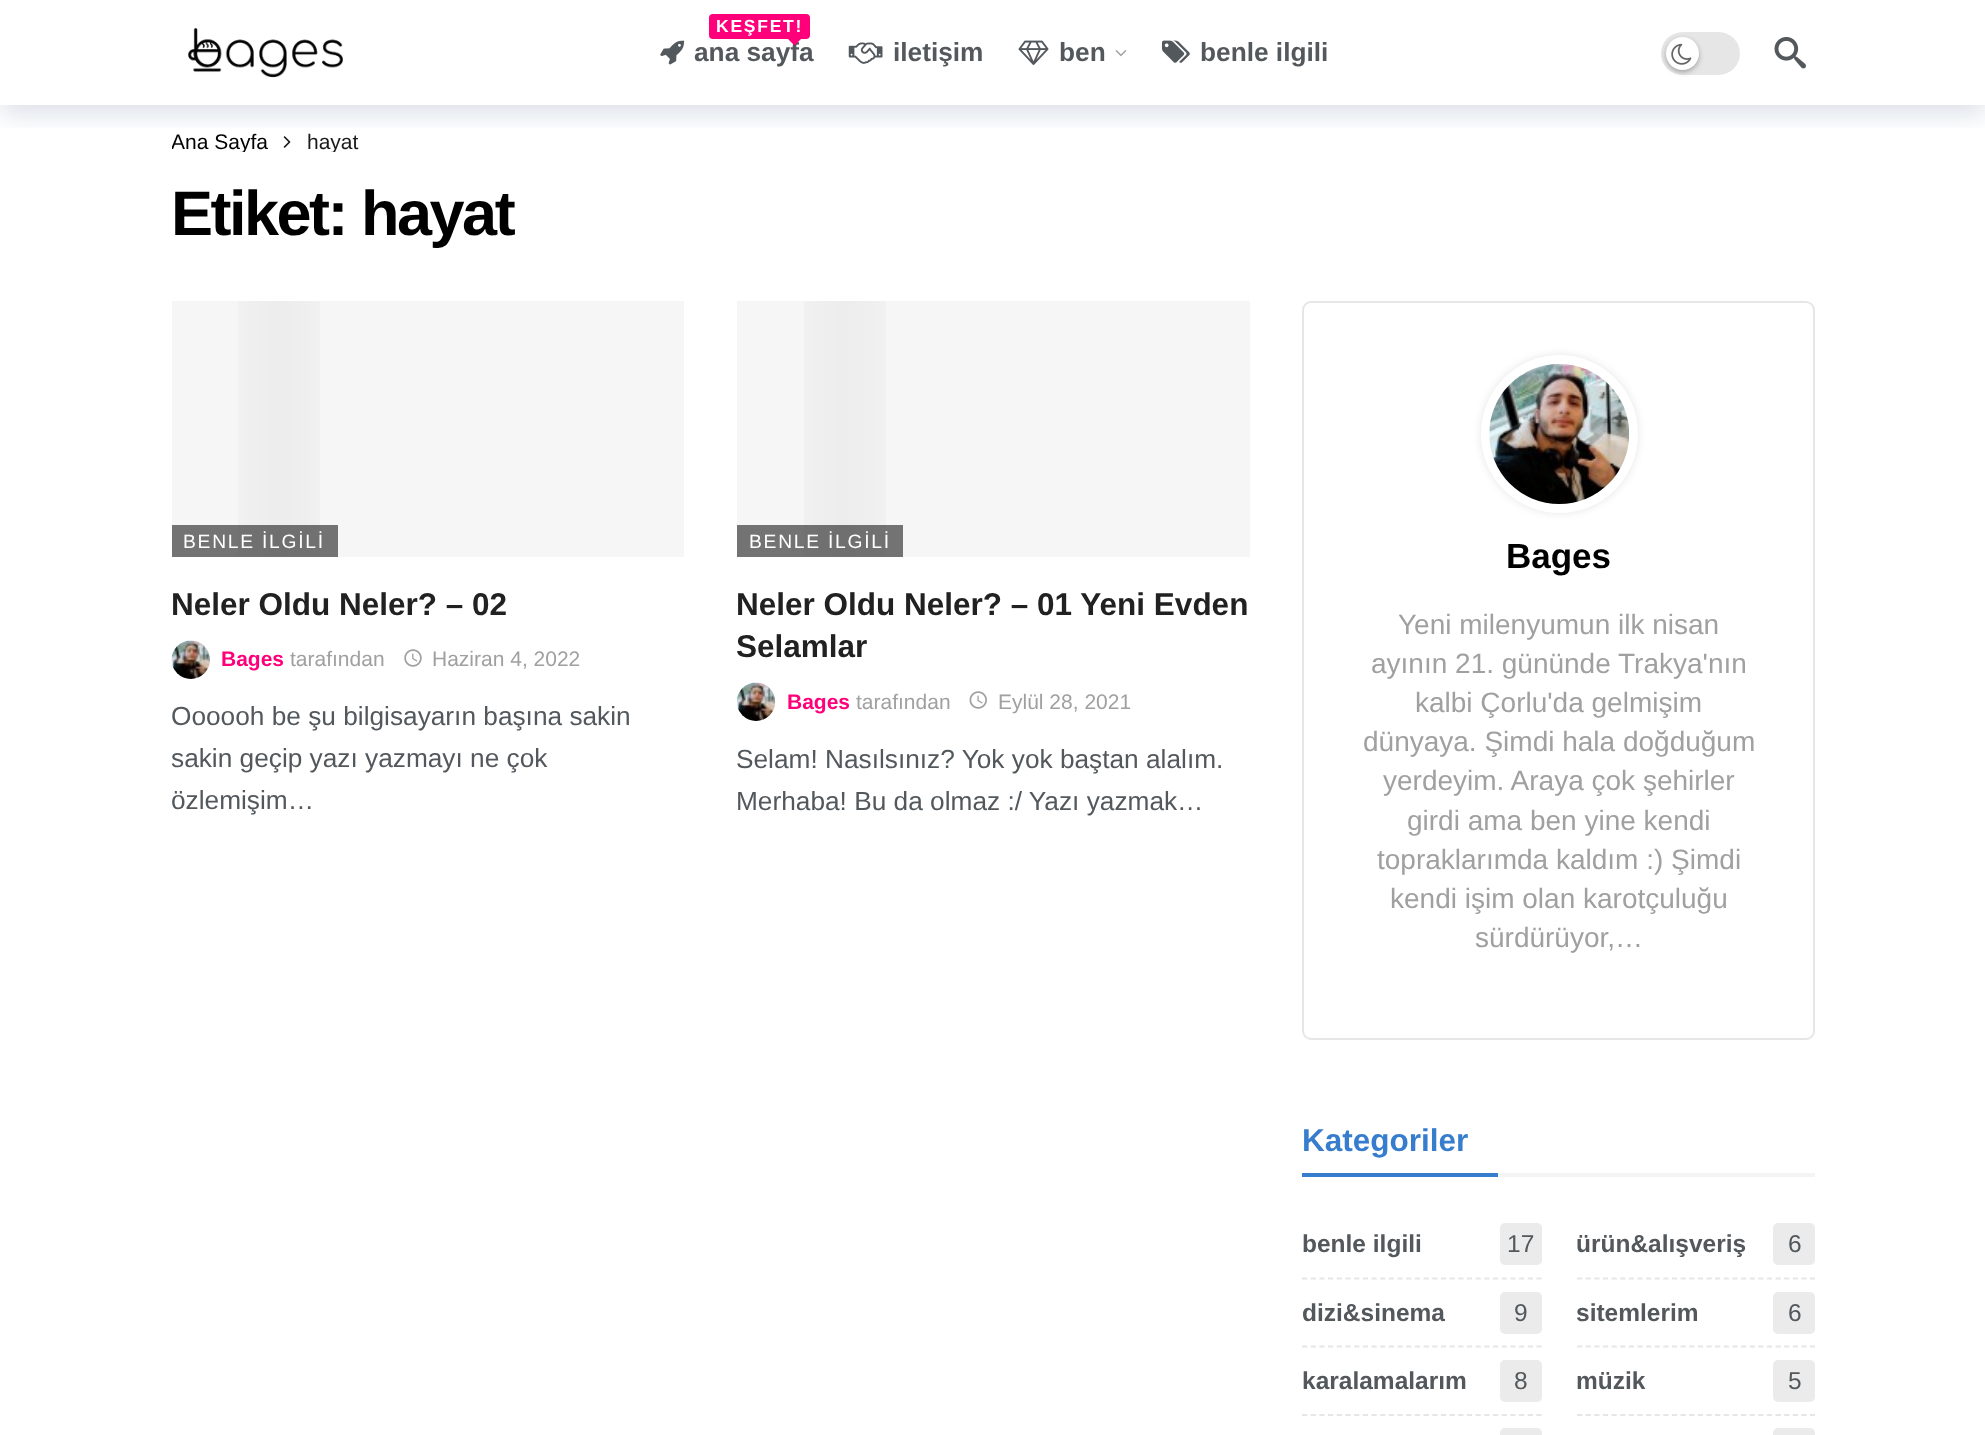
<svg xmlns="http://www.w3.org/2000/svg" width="1985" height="1435">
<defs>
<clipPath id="clip1"><rect x="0" y="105" width="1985" height="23"/></clipPath>
<clipPath id="clip2"><rect x="172" y="131" width="1645" height="21"/></clipPath>
</defs>
<rect width="100%" height="100%" fill="#fff"/>
<image x="283" y="136" width="8" height="12" href="media/9.png"/>
<g clip-path="url(#clip1)">
<rect y="9" width="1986" height="105" fill="#04316326" filter="blur(13px)"/>
</g>
<image x="188" y="28" width="155" height="50" href="media/1.png"/>
<rect x="709" y="14" width="101" height="25" rx="4" fill="#ff007a"/>
<text x="716" y="32" style="font-family:Liberation Sans;font-size:17.5px;font-weight:bold;letter-spacing:1.75px;fill:#fff">KEŞFET!</text>
<text x="694" y="61" style="font-family:Liberation Sans;font-size:26.25px;font-weight:bold;fill:#53585c">ana sayfa</text>
<path d="M787.5 38.5h14l-7 7z" fill="#ff007a"/>
<image x="660" y="40" width="25" height="25" href="media/2.png"/>
<image x="848" y="42" width="35" height="22" href="media/3.png"/>
<text x="893" y="61" style="font-family:Liberation Sans;font-size:26.25px;font-weight:bold;fill:#53585c">iletişim</text>
<image x="1018" y="40" width="31" height="25" href="media/4.png"/>
<text x="1059" y="61" style="font-family:Liberation Sans;font-size:26.25px;font-weight:bold;fill:#53585c">ben</text>
<image x="1115" y="50" width="12" height="7" href="media/5.png"/>
<image x="1162" y="40" width="28" height="23" href="media/6.png"/>
<text x="1200" y="61" style="font-family:Liberation Sans;font-size:26.25px;font-weight:bold;fill:#53585c">benle ilgili</text>
<rect x="1661" y="32" width="79" height="43" rx="21.5" fill="#e6e6e6"/>
<rect x="1666" y="39" width="33" height="33" rx="16.5" fill="#0000004d" filter="blur(2.5px)"/>
<circle cx="1682.5" cy="53.5" r="16.5" fill="#fff"/>
<image x="1671" y="43" width="21" height="22" href="media/7.png"/>
<image x="1774" y="37" width="32" height="32" href="media/8.png"/>
<g clip-path="url(#clip2)">
<text x="171" y="149" style="font-family:Liberation Sans;font-size:21px;fill:#000">Ana Sayfa</text>
<text x="307" y="149" style="font-family:Liberation Sans;font-size:21px;fill:#1a1a1a">hayat</text>
</g>
<text x="171" y="235" style="font-family:Liberation Sans;font-size:63px;font-weight:bold;letter-spacing:-2.5px;fill:#000">Etiket: hayat</text>
<rect x="172" y="301" width="512" height="256" fill="#f6f6f6"/>
<image x="238" y="301" width="82" height="255" href="media/10.png"/>
<rect x="172" y="525" width="166" height="32" fill="#262626a1"/>
<text x="183" y="548" style="font-family:Liberation Sans;font-size:19.25px;letter-spacing:1.75px;fill:#fff">BENLE İLGİLİ</text>
<text x="171" y="615" style="font-family:Liberation Sans;font-size:31.5px;font-weight:bold;fill:#212121">Neler Oldu Neler? – 02</text>
<image x="171" y="640" width="39" height="39" href="media/11.png"/>
<text x="221" y="666" style="font-family:Liberation Sans;font-size:21px;font-weight:bold;fill:#ff007a">Bages</text>
<text x="290" y="666" style="font-family:Liberation Sans;font-size:21px;fill:#a0a0a0">tarafından</text>
<image x="404" y="649" width="18" height="18" href="media/12.png"/>
<text x="432" y="666" style="font-family:Liberation Sans;font-size:21px;fill:#a0a0a0">Haziran 4, 2022</text>
<text x="171" y="725" style="font-family:Liberation Sans;font-size:26.25px;fill:#53585c">Oooooh be şu bilgisayarın başına sakin</text>
<text x="171" y="767" style="font-family:Liberation Sans;font-size:26.25px;fill:#53585c">sakin geçip yazı yazmayı ne çok</text>
<text x="171" y="809" style="font-family:Liberation Sans;font-size:26.25px;fill:#53585c">özlemişim…</text>
<rect x="737" y="301" width="513" height="256" fill="#f6f6f6"/>
<image x="804" y="301" width="82" height="255" href="media/13.png"/>
<rect x="737" y="525" width="166" height="32" fill="#262626a1"/>
<text x="749" y="548" style="font-family:Liberation Sans;font-size:19.25px;letter-spacing:1.75px;fill:#fff">BENLE İLGİLİ</text>
<text x="736" y="615" style="font-family:Liberation Sans;font-size:31.5px;font-weight:bold;fill:#212121">Neler Oldu Neler? – 01 Yeni Evden</text>
<text x="736" y="657" style="font-family:Liberation Sans;font-size:31.5px;font-weight:bold;fill:#212121">Selamlar</text>
<image x="737" y="682" width="39" height="39" href="media/14.png"/>
<text x="787" y="709" style="font-family:Liberation Sans;font-size:21px;font-weight:bold;fill:#ff007a">Bages</text>
<text x="856" y="709" style="font-family:Liberation Sans;font-size:21px;fill:#a0a0a0">tarafından</text>
<image x="969" y="691" width="18" height="18" href="media/15.png"/>
<text x="998" y="709" style="font-family:Liberation Sans;font-size:21px;fill:#a0a0a0">Eylül 28, 2021</text>
<text x="736" y="768" style="font-family:Liberation Sans;font-size:26.25px;fill:#53585c">Selam! Nasılsınız? Yok yok baştan alalım.</text>
<text x="736" y="810" style="font-family:Liberation Sans;font-size:26.25px;fill:#53585c">Merhaba! Bu da olmaz :/ Yazı yazmak…</text>
<rect x="1303" y="302" width="511" height="737" rx="8" fill="none" stroke="#e6e6e6" stroke-width="2"/>
<rect x="1481" y="355" width="157" height="158" rx="78.5" fill="#0000001a" filter="blur(4.5px)"/>
<rect x="1481" y="355" width="157" height="158" rx="78.5" fill="#fff"/>
<image x="1489" y="364" width="141" height="140" href="media/16.png"/>
<text x="1506" y="568" style="font-family:Liberation Sans;font-size:35px;font-weight:bold;fill:#000">Bages</text>
<text x="1398" y="634" style="font-family:Liberation Sans;font-size:28px;fill:#a0a0a0">Yeni milenyumun ilk nisan</text>
<text x="1371" y="673" style="font-family:Liberation Sans;font-size:28px;fill:#a0a0a0">ayının 21. gününde Trakya'nın</text>
<text x="1415" y="712" style="font-family:Liberation Sans;font-size:28px;fill:#a0a0a0">kalbi Çorlu'da gelmişim</text>
<text x="1363" y="751" style="font-family:Liberation Sans;font-size:28px;fill:#a0a0a0">dünyaya. Şimdi hala doğduğum</text>
<text x="1383" y="790" style="font-family:Liberation Sans;font-size:28px;fill:#a0a0a0">yerdeyim. Araya çok şehirler</text>
<text x="1407" y="830" style="font-family:Liberation Sans;font-size:28px;fill:#a0a0a0">girdi ama ben yine kendi</text>
<text x="1377" y="869" style="font-family:Liberation Sans;font-size:28px;fill:#a0a0a0">topraklarımda kaldım :) Şimdi</text>
<text x="1390" y="908" style="font-family:Liberation Sans;font-size:28px;fill:#a0a0a0">kendi işim olan karotçuluğu</text>
<text x="1475" y="947" style="font-family:Liberation Sans;font-size:28px;fill:#a0a0a0">sürdürüyor,…</text>
<text x="1302" y="1151" style="font-family:Liberation Sans;font-size:31.5px;font-weight:bold;fill:#377dce">Kategoriler</text>
<rect x="1302" y="1173" width="196" height="4" fill="#377dce"/>
<rect x="1498" y="1173" width="317" height="4" fill="#f4f4f4"/>
<path d="M1302 1278.5h240" fill="none" stroke="#e6e6e6" stroke-width="1.8" stroke-dasharray="5.25 3.43"/>
<text x="1302" y="1252" style="font-family:Liberation Sans;font-size:24.5px;font-weight:bold;fill:#53585c">benle ilgili</text>
<rect x="1500" y="1223" width="42" height="42" rx="5" fill="#ebebeb"/>
<text x="1507" y="1252" style="font-family:Liberation Sans;font-size:24.5px;fill:#53585c">17</text>
<path d="M1577 1278.5h238" fill="none" stroke="#e6e6e6" stroke-width="1.8" stroke-dasharray="5.25 3.38"/>
<text x="1576" y="1252" style="font-family:Liberation Sans;font-size:24.5px;font-weight:bold;fill:#53585c">ürün&amp;alışveriş</text>
<rect x="1773" y="1223" width="42" height="42" rx="5" fill="#ebebeb"/>
<text x="1788" y="1252" style="font-family:Liberation Sans;font-size:24.5px;fill:#53585c">6</text>
<path d="M1302 1346.5h240" fill="none" stroke="#e6e6e6" stroke-width="1.8" stroke-dasharray="5.25 3.43"/>
<text x="1302" y="1321" style="font-family:Liberation Sans;font-size:24.5px;font-weight:bold;fill:#53585c">dizi&amp;sinema</text>
<rect x="1500" y="1292" width="42" height="42" rx="5" fill="#ebebeb"/>
<text x="1514" y="1321" style="font-family:Liberation Sans;font-size:24.5px;fill:#53585c">9</text>
<path d="M1577 1346.5h238" fill="none" stroke="#e6e6e6" stroke-width="1.8" stroke-dasharray="5.25 3.38"/>
<text x="1576" y="1321" style="font-family:Liberation Sans;font-size:24.5px;font-weight:bold;fill:#53585c">sitemlerim</text>
<rect x="1773" y="1292" width="42" height="42" rx="5" fill="#ebebeb"/>
<text x="1788" y="1321" style="font-family:Liberation Sans;font-size:24.5px;fill:#53585c">6</text>
<path d="M1302 1415h240" fill="none" stroke="#e6e6e6" stroke-width="1.8" stroke-dasharray="5.25 3.43"/>
<text x="1302" y="1389" style="font-family:Liberation Sans;font-size:24.5px;font-weight:bold;fill:#53585c">karalamalarım</text>
<rect x="1500" y="1360" width="42" height="42" rx="5" fill="#ebebeb"/>
<text x="1514" y="1389" style="font-family:Liberation Sans;font-size:24.5px;fill:#53585c">8</text>
<path d="M1577 1415h238" fill="none" stroke="#e6e6e6" stroke-width="1.8" stroke-dasharray="5.25 3.38"/>
<text x="1576" y="1389" style="font-family:Liberation Sans;font-size:24.5px;font-weight:bold;fill:#53585c">müzik</text>
<rect x="1773" y="1360" width="42" height="42" rx="5" fill="#ebebeb"/>
<text x="1788" y="1389" style="font-family:Liberation Sans;font-size:24.5px;fill:#53585c">5</text>
<rect x="1500" y="1428" width="42" height="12" rx="5" fill="#ebebeb"/>
<rect x="1773" y="1428" width="42" height="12" rx="5" fill="#ebebeb"/>
</svg>
